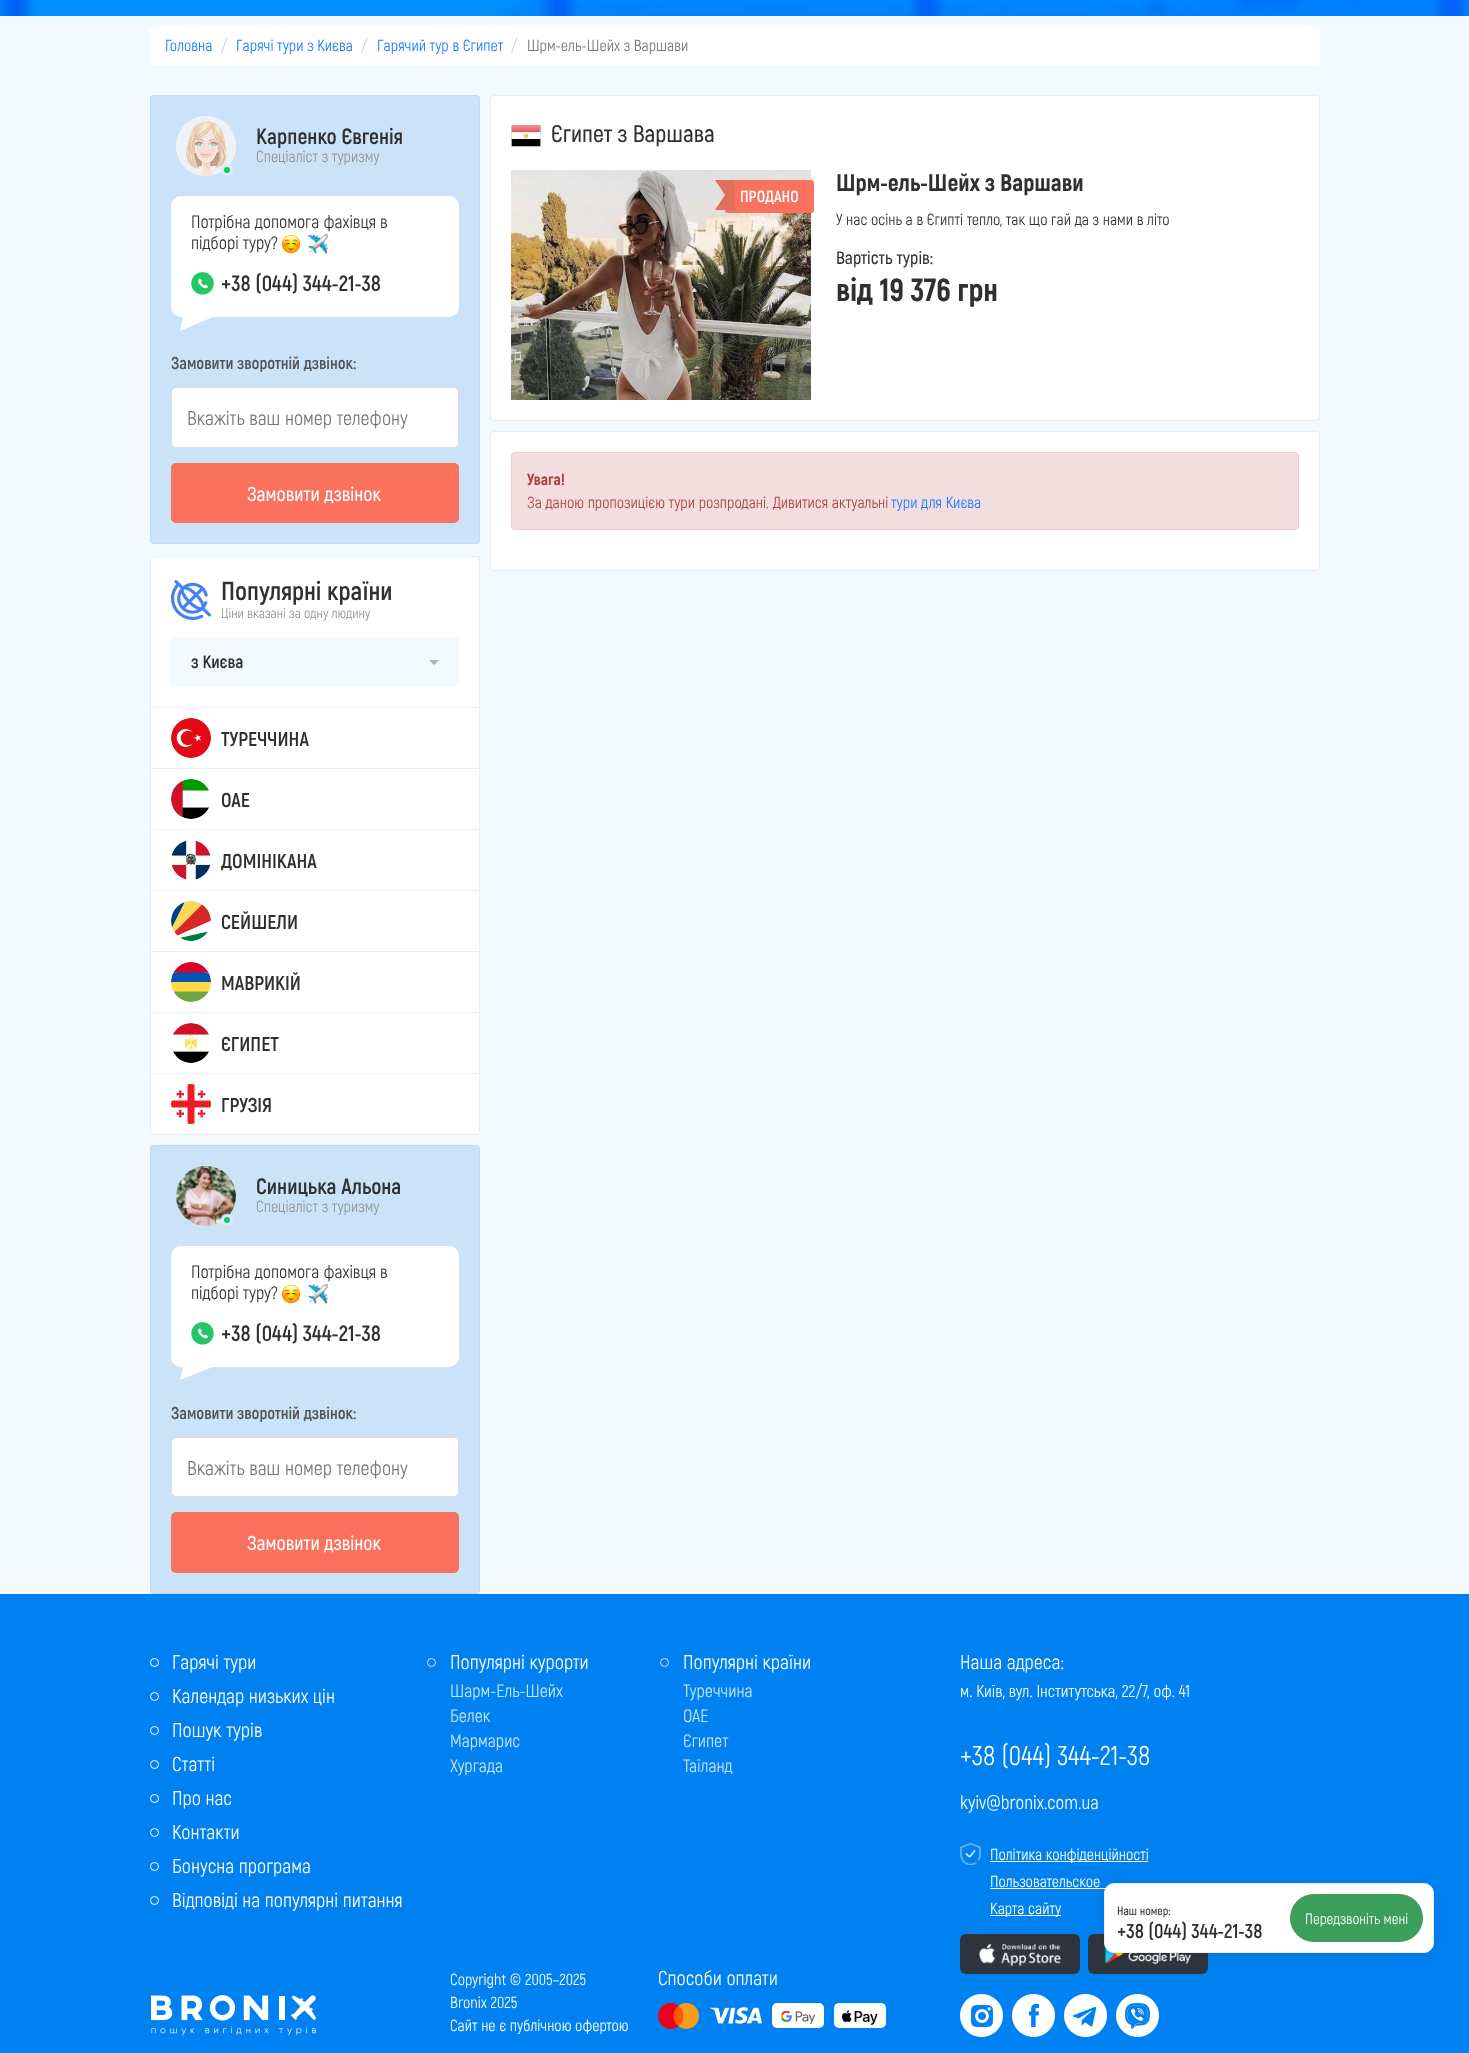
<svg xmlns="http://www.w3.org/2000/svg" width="1469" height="2053">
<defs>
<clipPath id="clip1"><rect x="1115" y="1897" width="150" height="43"/></clipPath>
</defs>
<rect width="100%" height="100%" fill="#f2f9ff"/>
<image x="0" y="0" width="1469" height="16" href="media/1.png"/>
<rect x="150" y="26" width="1170" height="39" rx="4" fill="#fff"/>
<text x="165" y="51" style="font-family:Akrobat;font-size:16px;fill:#2079ff">Головна</text>
<text x="221" y="51" style="font-family:Akrobat;font-size:16px;fill:#ccc">/</text>
<text x="236" y="51" style="font-family:Akrobat;font-size:16px;fill:#2079ff">Гарячі тури з Києва</text>
<text x="361" y="51" style="font-family:Akrobat;font-size:16px;fill:#ccc">/</text>
<text x="377" y="51" style="font-family:Akrobat;font-size:16px;fill:#2079ff">Гарячий тур в Єгипет</text>
<text x="511" y="51" style="font-family:Akrobat;font-size:16px;fill:#ccc">/</text>
<text x="527" y="51" style="font-family:Akrobat;font-size:16px;fill:#777">Шрм-ель-Шейх з Варшави</text>
<rect x="150" y="95" width="330" height="449" rx="4" fill="#cbe3f8"/>
<rect x="150.5" y="95.5" width="329" height="448" rx="3.5" fill="none" stroke="#bbd7eea1"/>
<circle cx="206" cy="146" r="30" fill="#eee"/>
<image x="176" y="116" width="60" height="60" href="media/2.png"/>
<circle cx="227" cy="170" r="4.5" fill="#16c65e" stroke="#ddebf7" stroke-width="3"/>
<text x="256" y="144" style="font-family:Akrobat;font-size:22px;font-weight:bold;fill:#303030">Карпенко Євгенія</text>
<text x="256" y="162" style="font-family:Akrobat;font-size:16px;fill:#959595">Спеціаліст з туризму</text>
<rect x="171" y="196" width="288" height="121" rx="10" fill="#fff"/>
<text x="191" y="228" style="font-family:Akrobat;font-size:18px;fill:#303030">Потрібна допомога фахівця в</text>
<text x="191" y="249" style="font-family:Akrobat;font-size:18px;fill:#303030">підборі туру?</text>
<image x="281" y="234" width="20" height="20" href="media/3.png"/>
<image x="308" y="234" width="20" height="20" href="media/4.png"/>
<image x="191" y="272" width="23" height="23" href="media/5.png"/>
<text x="221" y="291" style="font-family:Akrobat;font-size:22px;font-weight:bold;fill:#303030">+38 (044) 344-21-38</text>
<path d="M189 289l31 25l-40 17z" fill="#fff"/>
<text x="171" y="369" style="font-family:Akrobat;font-size:17px;font-weight:bold;fill:#545454">Замовити зворотній дзвінок:</text>
<rect x="171.5" y="387.5" width="287" height="60" rx="4.5" fill="#fff" stroke="#ddd"/>
<text x="187" y="425" style="font-family:Akrobat;font-size:20px;fill:#777">Вкажіть ваш номер телефону</text>
<rect x="171" y="463" width="288" height="60" rx="5" fill="#fa715d"/>
<text x="247" y="501" style="font-family:Akrobat;font-size:20px;font-weight:600;fill:#fff">Замовити дзвінок</text>
<rect x="150.5" y="556.5" width="329" height="578" rx="3.5" fill="#fff" stroke="#e5edf6"/>
<image x="171" y="580" width="40" height="40" href="media/6.png"/>
<text x="221" y="600" style="font-family:Akrobat;font-size:26px;font-weight:bold;fill:#303030">Популярні країни</text>
<text x="221" y="618" style="font-family:Akrobat;font-size:14px;fill:#959595">Ціни вказані за одну людину</text>
<rect x="171" y="637" width="288" height="50" rx="4" fill="#f2f9ff"/>
<text x="191" y="668" style="font-family:Akrobat;font-size:18px;font-weight:bold;fill:#303030">з Києва</text>
<path d="M429 660h10l-5 5z" fill="#abb2bb"/>
<rect x="151" y="707" width="328" height="1" fill="#eee"/>
<rect x="151" y="768" width="328" height="1" fill="#eee"/>
<image x="171" y="718" width="40" height="40" href="media/7.png"/>
<text x="221" y="746" style="font-family:Akrobat;font-size:20px;font-weight:bold;fill:#303030">ТУРЕЧЧИНА</text>
<rect x="151" y="829" width="328" height="1" fill="#eee"/>
<image x="171" y="779" width="38" height="40" href="media/8.png"/>
<text x="221" y="807" style="font-family:Akrobat;font-size:20px;font-weight:bold;fill:#303030">ОАЕ</text>
<rect x="151" y="890" width="328" height="1" fill="#eee"/>
<image x="171" y="840" width="40" height="40" href="media/9.png"/>
<text x="221" y="868" style="font-family:Akrobat;font-size:20px;font-weight:bold;fill:#303030">ДОМІНІКАНА</text>
<rect x="151" y="951" width="328" height="1" fill="#eee"/>
<image x="171" y="901" width="40" height="40" href="media/10.png"/>
<text x="221" y="929" style="font-family:Akrobat;font-size:20px;font-weight:bold;fill:#303030">СЕЙШЕЛИ</text>
<rect x="151" y="1012" width="328" height="1" fill="#eee"/>
<image x="171" y="962" width="40" height="40" href="media/11.png"/>
<text x="221" y="990" style="font-family:Akrobat;font-size:20px;font-weight:bold;fill:#303030">МАВРИКІЙ</text>
<rect x="151" y="1073" width="328" height="1" fill="#eee"/>
<image x="173" y="1023" width="36" height="40" href="media/12.png"/>
<text x="221" y="1051" style="font-family:Akrobat;font-size:20px;font-weight:bold;fill:#303030">ЄГИПЕТ</text>
<rect x="151" y="1134" width="328" height="1" fill="#eee"/>
<image x="171" y="1084" width="40" height="40" href="media/13.png"/>
<text x="221" y="1112" style="font-family:Akrobat;font-size:20px;font-weight:bold;fill:#303030">ГРУЗІЯ</text>
<rect x="150" y="1145" width="330" height="449" rx="4" fill="#cbe3f8"/>
<rect x="150.5" y="1145.5" width="329" height="448" rx="3.5" fill="none" stroke="#bbd7eea1"/>
<circle cx="206" cy="1196" r="30" fill="#eee"/>
<image x="176" y="1166" width="60" height="60" href="media/14.png"/>
<circle cx="227" cy="1220" r="4.5" fill="#16c65e" stroke="#ddebf7" stroke-width="3"/>
<text x="256" y="1194" style="font-family:Akrobat;font-size:22px;font-weight:bold;fill:#303030">Синицька Альона</text>
<text x="256" y="1212" style="font-family:Akrobat;font-size:16px;fill:#959595">Спеціаліст з туризму</text>
<rect x="171" y="1246" width="288" height="121" rx="10" fill="#fff"/>
<text x="191" y="1278" style="font-family:Akrobat;font-size:18px;fill:#303030">Потрібна допомога фахівця в</text>
<text x="191" y="1299" style="font-family:Akrobat;font-size:18px;fill:#303030">підборі туру?</text>
<image x="281" y="1284" width="20" height="20" href="media/15.png"/>
<image x="308" y="1284" width="20" height="20" href="media/16.png"/>
<image x="191" y="1322" width="23" height="23" href="media/5.png"/>
<text x="221" y="1341" style="font-family:Akrobat;font-size:22px;font-weight:bold;fill:#303030">+38 (044) 344-21-38</text>
<path d="M189 1339l31 25l-40 16z" fill="#fff"/>
<text x="171" y="1419" style="font-family:Akrobat;font-size:17px;font-weight:bold;fill:#545454">Замовити зворотній дзвінок:</text>
<rect x="171.5" y="1437.5" width="287" height="59" rx="4.5" fill="#fff" stroke="#ddd"/>
<text x="187" y="1475" style="font-family:Akrobat;font-size:20px;fill:#777">Вкажіть ваш номер телефону</text>
<rect x="171" y="1512" width="288" height="61" rx="5" fill="#fa715d"/>
<text x="247" y="1550" style="font-family:Akrobat;font-size:20px;font-weight:600;fill:#fff">Замовити дзвінок</text>
<rect x="490.5" y="95.5" width="829" height="325" rx="3.5" fill="#fff" stroke="#e5edf6"/>
<image x="511" y="125" width="30" height="22" href="media/17.png"/>
<text x="551" y="142" style="font-family:Akrobat;font-size:24px;font-weight:600;fill:#303030">Єгипет з Варшава</text>
<image x="511" y="170" width="300" height="230" href="media/18.png"/>
<rect x="725" y="180" width="89" height="33" rx="3" fill="#fa715d"/>
<path d="M715 180h20l-10 15z" fill="#df705a"/>
<rect x="725" y="180" width="10" height="30" fill="#df705a"/>
<path d="M735 210h-20l10-15z" fill="#df705a"/>
<text x="740" y="202" style="font-family:Akrobat;font-size:16px;font-weight:bold;fill:#fff">ПРОДАНО</text>
<text x="836" y="191" style="font-family:Akrobat;font-size:24px;font-weight:800;fill:#303030">Шрм-ель-Шейх з Варшави</text>
<text x="836" y="225" style="font-family:Akrobat;font-size:16px;fill:#303030">У нас осінь а в Єгипті тепло, так що гай да з нами в літо</text>
<text x="836" y="264" style="font-family:Akrobat;font-size:18px;font-weight:600;fill:#303030">Вартість турів:</text>
<text x="836" y="301" style="font-family:Akrobat;font-size:32px;font-weight:800;fill:#303030">від 19 376 грн</text>
<rect x="490.5" y="431.5" width="829" height="139" rx="3.5" fill="#fff" stroke="#e5edf6"/>
<rect x="511.5" y="452.5" width="787" height="77" rx="3.5" fill="#f2dede" stroke="#ebccd1"/>
<text x="527" y="485" style="font-family:Akrobat;font-size:16px;font-weight:800;fill:#a94442">Увага!</text>
<text x="527" y="508" style="font-family:Akrobat;font-size:16px;fill:#a94442">За даною пропозицією тури розпродані. Дивитися актуальні</text>
<text x="891" y="508" style="font-family:Akrobat;font-size:16px;fill:#2079ff">тури для Києва</text>
<rect y="1594" width="1469" height="459" fill="#0081f1"/>
<circle cx="154.5" cy="1662.5" r="4" fill="none" stroke="#fff"/>
<text x="172" y="1669" style="font-family:Akrobat;font-size:20px;fill:#fff">Гарячі тури</text>
<circle cx="154.5" cy="1696.5" r="4" fill="none" stroke="#fff"/>
<text x="172" y="1703" style="font-family:Akrobat;font-size:20px;fill:#fff">Календар низьких цін</text>
<circle cx="154.5" cy="1730.5" r="4" fill="none" stroke="#fff"/>
<text x="172" y="1737" style="font-family:Akrobat;font-size:20px;fill:#fff">Пошук турів</text>
<circle cx="154.5" cy="1764.5" r="4" fill="none" stroke="#fff"/>
<text x="172" y="1771" style="font-family:Akrobat;font-size:20px;fill:#fff">Статті</text>
<circle cx="154.5" cy="1798.5" r="4" fill="none" stroke="#fff"/>
<text x="172" y="1805" style="font-family:Akrobat;font-size:20px;fill:#fff">Про нас</text>
<circle cx="154.5" cy="1832.5" r="4" fill="none" stroke="#fff"/>
<text x="172" y="1839" style="font-family:Akrobat;font-size:20px;fill:#fff">Контакти</text>
<circle cx="154.5" cy="1866.5" r="4" fill="none" stroke="#fff"/>
<text x="172" y="1873" style="font-family:Akrobat;font-size:20px;fill:#fff">Бонусна програма</text>
<circle cx="154.5" cy="1900.5" r="4" fill="none" stroke="#fff"/>
<text x="172" y="1907" style="font-family:Akrobat;font-size:20px;fill:#fff">Відповіді на популярні питання</text>
<image x="151" y="1995" width="165" height="41" href="media/19.png"/>
<circle cx="431.5" cy="1662.5" r="4" fill="none" stroke="#cee7fc"/>
<text x="450" y="1669" style="font-family:Akrobat;font-size:20px;fill:#fff">Популярні курорти</text>
<text x="450" y="1697" style="font-family:Akrobat;font-size:18px;fill:#cce6fc">Шарм-Ель-Шейх</text>
<text x="450" y="1722" style="font-family:Akrobat;font-size:18px;fill:#cce6fc">Белек</text>
<text x="450" y="1747" style="font-family:Akrobat;font-size:18px;fill:#cce6fc">Мармарис</text>
<text x="450" y="1772" style="font-family:Akrobat;font-size:18px;fill:#cce6fc">Хургада</text>
<circle cx="664.5" cy="1662.5" r="4" fill="none" stroke="#cee7fc"/>
<text x="683" y="1669" style="font-family:Akrobat;font-size:20px;fill:#fff">Популярні країни</text>
<text x="683" y="1697" style="font-family:Akrobat;font-size:18px;fill:#cce6fc">Туреччина</text>
<text x="683" y="1722" style="font-family:Akrobat;font-size:18px;fill:#cce6fc">ОАЕ</text>
<text x="683" y="1747" style="font-family:Akrobat;font-size:18px;fill:#cce6fc">Єгипет</text>
<text x="683" y="1772" style="font-family:Akrobat;font-size:18px;fill:#cce6fc">Таїланд</text>
<text x="450" y="1985" style="font-family:Akrobat;font-size:16px;fill:#fff">Copyright © 2005–2025</text>
<text x="450" y="2008" style="font-family:Akrobat;font-size:16px;fill:#fff">Bronix 2025</text>
<text x="450" y="2031" style="font-family:Akrobat;font-size:16px;fill:#fff">Сайт не є публічною офертою</text>
<text x="658" y="1985" style="font-family:Akrobat;font-size:20px;fill:#fff">Способи оплати</text>
<image x="658" y="2003" width="41" height="26" href="media/20.png"/>
<image x="709" y="2007" width="53" height="17" href="media/21.png"/>
<rect x="772" y="2003" width="52" height="25" rx="5" fill="#fff"/>
<image x="781" y="2011" width="34" height="13" href="media/22.png"/>
<rect x="834" y="2003" width="52" height="25" rx="5" fill="#fff"/>
<image x="842" y="2010" width="36" height="15" href="media/23.png"/>
<text x="960" y="1669" style="font-family:Akrobat;font-size:20px;fill:#fff">Наша адреса:</text>
<text x="960" y="1697" style="font-family:Akrobat;font-size:17px;fill:#fff">м. Київ, вул. Інститутська, 22/7, оф. 41</text>
<text x="960" y="1765" style="font-family:Akrobat;font-size:27px;fill:#fff">+38 (044) 344-21-38</text>
<text x="960" y="1809" style="font-family:Akrobat;font-size:19px;fill:#fff">kyiv@bronix.com.ua</text>
<image x="960" y="1843" width="21" height="22" href="media/24.png"/>
<rect x="990" y="1861" width="158" height="1" fill="#fff"/>
<text x="990" y="1860" style="font-family:Akrobat;font-size:16px;fill:#fff">Політика конфіденційності</text>
<text x="990" y="1887" style="font-family:Akrobat;font-size:16px;fill:#fff">Пользовательское</text>
<rect x="990" y="1888" width="116" height="1" fill="#fff"/>
<rect x="990" y="1915" width="71" height="1" fill="#fff"/>
<text x="990" y="1914" style="font-family:Akrobat;font-size:16px;fill:#fff">Карта сайту</text>
<rect x="960" y="1934" width="120" height="40" rx="6" fill="#2f343d"/>
<image x="979" y="1943" width="82" height="23" href="media/25.png"/>
<rect x="1088" y="1934" width="120" height="40" rx="6" fill="#2f343d"/>
<image x="1105" y="1947" width="87" height="18" href="media/26.png"/>
<image x="960" y="1994" width="43" height="43" href="media/27.png"/>
<image x="1012" y="1994" width="43" height="43" href="media/28.png"/>
<image x="1064" y="1994" width="43" height="43" href="media/29.png"/>
<image x="1116" y="1994" width="43" height="43" href="media/30.png"/>
<rect x="1104" y="1885" width="330" height="70" rx="10" fill="#00000017" filter="blur(5px)"/>
<rect x="1104.5" y="1883.5" width="329" height="69" rx="9.5" fill="#fff" stroke="#eee"/>
<text x="1117" y="1915" style="font-family:Akrobat;font-size:12px;font-weight:600;fill:#303030">Наш номер:</text>
<g clip-path="url(#clip1)">
<text x="1117" y="1938" style="font-family:Akrobat;font-size:20px;font-weight:bold;fill:#303030">+38 (044) 344-21-38</text>
</g>
<rect x="1290" y="1894" width="133" height="48" rx="24" fill="#3b9e5a"/>
<text x="1305" y="1924" style="font-family:Akrobat;font-size:15px;fill:#fff">Передзвоніть мені</text>
</svg>
